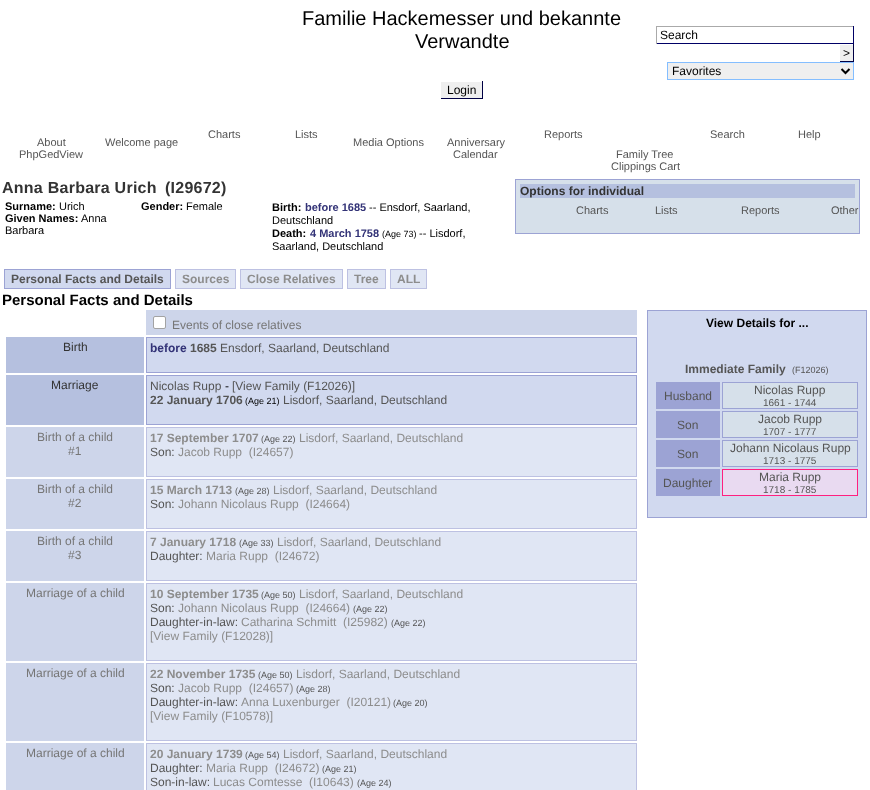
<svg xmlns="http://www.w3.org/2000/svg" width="870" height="790">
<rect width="100%" height="100%" fill="#fff"/>
<text x="302" y="25" style="font-family:Liberation Sans;font-size:20px;fill:#000">Familie Hackemesser und bekannte</text>
<text x="415" y="48" style="font-family:Liberation Sans;font-size:20px;fill:#000">Verwandte</text>
<rect x="441" y="82" width="41" height="16" fill="#efefef"/>
<rect x="482" y="81" width="1" height="18" fill="#004"/>
<rect x="440" y="98" width="43" height="1" fill="#004"/>
<rect x="440" y="98" width="1" height="1" fill="#fff"/>
<text x="447" y="94" style="font-family:Liberation Sans;font-size:12px;fill:#000">Login</text>
<rect x="656" y="26" width="198" height="1" fill="#aaa"/>
<rect x="853" y="26" width="1" height="18" fill="#006"/>
<rect x="656" y="43" width="198" height="1" fill="#006"/>
<rect x="656" y="26" width="1" height="18" fill="#aaa"/>
<text x="660" y="39" style="font-family:Liberation Sans;font-size:12px;fill:#000">Search</text>
<rect x="840" y="45" width="13" height="16" fill="#efefef"/>
<rect x="853" y="44" width="1" height="18" fill="#004"/>
<rect x="839" y="61" width="15" height="1" fill="#004"/>
<rect x="839" y="61" width="1" height="1" fill="#fff"/>
<text x="843" y="57" style="font-family:Liberation Sans;font-size:12px;fill:#000">&gt;</text>
<rect x="667.5" y="62.5" width="186" height="17" fill="#efefef" stroke="#84beff"/>
<path d="M841.5 69l4 4l4-4" fill="none" stroke="#000" stroke-width="2"/>
<text x="672" y="75" style="font-family:Liberation Sans;font-size:12px;fill:#000">Favorites</text>
<text x="208" y="138" style="font-family:Liberation Sans;font-size:11px;fill:#555">Charts</text>
<text x="295" y="138" style="font-family:Liberation Sans;font-size:11px;fill:#555">Lists</text>
<text x="544" y="138" style="font-family:Liberation Sans;font-size:11px;fill:#555">Reports</text>
<text x="710" y="138" style="font-family:Liberation Sans;font-size:11px;fill:#555">Search</text>
<text x="798" y="138" style="font-family:Liberation Sans;font-size:11px;fill:#555">Help</text>
<text x="37" y="146" style="font-family:Liberation Sans;font-size:11px;fill:#555">About</text>
<text x="19" y="158" style="font-family:Liberation Sans;font-size:11px;fill:#555">PhpGedView</text>
<text x="105" y="146" style="font-family:Liberation Sans;font-size:11px;fill:#555">Welcome page</text>
<text x="353" y="146" style="font-family:Liberation Sans;font-size:11px;fill:#555">Media Options</text>
<text x="447" y="146" style="font-family:Liberation Sans;font-size:11px;fill:#555">Anniversary</text>
<text x="453" y="158" style="font-family:Liberation Sans;font-size:11px;fill:#555">Calendar</text>
<text x="616" y="158" style="font-family:Liberation Sans;font-size:11px;fill:#555">Family Tree</text>
<text x="611" y="170" style="font-family:Liberation Sans;font-size:11px;fill:#555">Clippings Cart</text>
<text x="2" y="193" style="font-family:Liberation Sans;font-size:16px;font-weight:bold;letter-spacing:0.25px;fill:#333">Anna Barbara Urich</text>
<text x="165" y="193" style="font-family:Liberation Sans;font-size:16px;font-weight:bold;letter-spacing:0.25px;fill:#333">(I29672)</text>
<text x="5" y="210" style="font-family:Liberation Sans;font-size:11px;font-weight:bold;fill:#000">Surname:</text>
<text x="59" y="210" style="font-family:Liberation Sans;font-size:11px;fill:#000">Urich</text>
<text x="5" y="222" style="font-family:Liberation Sans;font-size:11px;font-weight:bold;fill:#000">Given Names:</text>
<text x="81" y="222" style="font-family:Liberation Sans;font-size:11px;fill:#000">Anna</text>
<text x="5" y="234" style="font-family:Liberation Sans;font-size:11px;fill:#000">Barbara</text>
<text x="141" y="210" style="font-family:Liberation Sans;font-size:11px;font-weight:bold;fill:#000">Gender:</text>
<text x="186" y="210" style="font-family:Liberation Sans;font-size:11px;fill:#000">Female</text>
<text x="272" y="211" style="font-family:Liberation Sans;font-size:11px;font-weight:bold;fill:#000">Birth:</text>
<text x="305" y="211" style="font-family:Liberation Sans;font-size:11px;font-weight:bold;fill:#337">before 1685</text>
<text x="369" y="211" style="font-family:Liberation Sans;font-size:11px;fill:#000">-- Ensdorf, Saarland,</text>
<text x="272" y="224" style="font-family:Liberation Sans;font-size:11px;fill:#000">Deutschland</text>
<text x="272" y="237" style="font-family:Liberation Sans;font-size:11px;font-weight:bold;fill:#000">Death:</text>
<text x="310" y="237" style="font-family:Liberation Sans;font-size:11px;font-weight:bold;fill:#337">4 March 1758</text>
<text x="382" y="237" style="font-family:Liberation Sans;font-size:9px;fill:#000">(Age 73)</text>
<text x="419" y="237" style="font-family:Liberation Sans;font-size:11px;fill:#000">-- Lisdorf,</text>
<text x="272" y="250" style="font-family:Liberation Sans;font-size:11px;fill:#000">Saarland, Deutschland</text>
<rect x="515.5" y="179.5" width="344" height="54" fill="#d6e0ea" stroke="#9ca3d4"/>
<rect x="520" y="184" width="335" height="14" fill="#b5c0df"/>
<text x="520" y="195" style="font-family:Liberation Sans;font-size:12px;font-weight:bold;fill:#333">Options for individual</text>
<text x="576" y="214" style="font-family:Liberation Sans;font-size:11px;fill:#555">Charts</text>
<text x="655" y="214" style="font-family:Liberation Sans;font-size:11px;fill:#555">Lists</text>
<text x="741" y="214" style="font-family:Liberation Sans;font-size:11px;fill:#555">Reports</text>
<text x="831" y="214" style="font-family:Liberation Sans;font-size:11px;fill:#555">Other</text>
<rect x="4.5" y="269.5" width="166" height="19" fill="#d1d9ef" stroke="#9ca3d4"/>
<text x="11" y="283" style="font-family:Liberation Sans;font-size:12px;font-weight:bold;fill:#555">Personal Facts and Details</text>
<rect x="175.5" y="269.5" width="60" height="19" fill="#e0e6f4" stroke="#bdc1e2"/>
<text x="182" y="283" style="font-family:Liberation Sans;font-size:12px;font-weight:bold;fill:#8d8d8d">Sources</text>
<rect x="240.5" y="269.5" width="102" height="19" fill="#e0e6f4" stroke="#bdc1e2"/>
<text x="247" y="283" style="font-family:Liberation Sans;font-size:12px;font-weight:bold;fill:#8d8d8d">Close Relatives</text>
<rect x="347.5" y="269.5" width="38" height="19" fill="#e0e6f4" stroke="#bdc1e2"/>
<text x="354" y="283" style="font-family:Liberation Sans;font-size:12px;font-weight:bold;fill:#8d8d8d">Tree</text>
<rect x="390.5" y="269.5" width="36" height="19" fill="#e0e6f4" stroke="#bdc1e2"/>
<text x="397" y="283" style="font-family:Liberation Sans;font-size:12px;font-weight:bold;fill:#8d8d8d">ALL</text>
<text x="2" y="305" style="font-family:Liberation Sans;font-size:15px;font-weight:bold;fill:#000">Personal Facts and Details</text>
<rect x="146" y="310" width="491" height="25" fill="#cdd5ea"/>
<rect x="153.5" y="316.5" width="12" height="12" rx="1.5" fill="#fff" stroke="#a3a3a3"/>
<text x="172" y="329" style="font-family:Liberation Sans;font-size:12px;fill:#767676">Events of close relatives</text>
<rect x="6" y="337" width="138" height="36" fill="#b5c0df"/>
<text x="63" y="351" style="font-family:Liberation Sans;font-size:12px;fill:#333">Birth</text>
<rect x="146.5" y="337.5" width="490" height="35" fill="#d1d9ef" stroke="#9ca3d4"/>
<text x="150" y="352" style="font-family:Liberation Sans;font-size:12px;font-weight:bold;fill:#337">before</text>
<text x="190" y="352" style="font-family:Liberation Sans;font-size:12px;font-weight:bold;fill:#555">1685</text>
<text x="220" y="352" style="font-family:Liberation Sans;font-size:12px;fill:#555">Ensdorf, Saarland, Deutschland</text>
<rect x="6" y="375" width="138" height="50" fill="#b5c0df"/>
<text x="51" y="389" style="font-family:Liberation Sans;font-size:12px;fill:#333">Marriage</text>
<rect x="146.5" y="375.5" width="490" height="49" fill="#d1d9ef" stroke="#9ca3d4"/>
<text x="150" y="390" style="font-family:Liberation Sans;font-size:12px;fill:#555">Nicolas Rupp</text>
<text x="225" y="390" style="font-family:Liberation Sans;font-size:12px;fill:#000">-</text>
<text x="232" y="390" style="font-family:Liberation Sans;font-size:12px;fill:#555">[View Family (F12026)]</text>
<text x="150" y="404" style="font-family:Liberation Sans;font-size:12px;font-weight:bold;fill:#555">22 January 1706</text>
<text x="245" y="404" style="font-family:Liberation Sans;font-size:9px;fill:#000">(Age 21)</text>
<text x="283" y="404" style="font-family:Liberation Sans;font-size:12px;fill:#555">Lisdorf, Saarland, Deutschland</text>
<rect x="6" y="427" width="138" height="50" fill="#cdd5ea"/>
<text x="37" y="441" style="font-family:Liberation Sans;font-size:12px;fill:#767676">Birth of a child</text>
<text x="68" y="455" style="font-family:Liberation Sans;font-size:12px;fill:#767676">#1</text>
<rect x="146.5" y="427.5" width="490" height="49" fill="#e0e6f4" stroke="#bdc1e2"/>
<text x="150" y="442" style="font-family:Liberation Sans;font-size:12px;font-weight:bold;fill:#8d8d8d">17 September 1707</text>
<text x="261" y="442" style="font-family:Liberation Sans;font-size:9px;fill:#555">(Age 22)</text>
<text x="299" y="442" style="font-family:Liberation Sans;font-size:12px;fill:#8d8d8d">Lisdorf, Saarland, Deutschland</text>
<text x="150" y="456" style="font-family:Liberation Sans;font-size:12px;fill:#555">Son:</text>
<text x="178" y="456" style="font-family:Liberation Sans;font-size:12px;fill:#8d8d8d" xml:space="preserve">Jacob Rupp  (I24657)</text>
<rect x="6" y="479" width="138" height="50" fill="#cdd5ea"/>
<text x="37" y="493" style="font-family:Liberation Sans;font-size:12px;fill:#767676">Birth of a child</text>
<text x="68" y="507" style="font-family:Liberation Sans;font-size:12px;fill:#767676">#2</text>
<rect x="146.5" y="479.5" width="490" height="49" fill="#e0e6f4" stroke="#bdc1e2"/>
<text x="150" y="494" style="font-family:Liberation Sans;font-size:12px;font-weight:bold;fill:#8d8d8d">15 March 1713</text>
<text x="235" y="494" style="font-family:Liberation Sans;font-size:9px;fill:#555">(Age 28)</text>
<text x="273" y="494" style="font-family:Liberation Sans;font-size:12px;fill:#8d8d8d">Lisdorf, Saarland, Deutschland</text>
<text x="150" y="508" style="font-family:Liberation Sans;font-size:12px;fill:#555">Son:</text>
<text x="178" y="508" style="font-family:Liberation Sans;font-size:12px;fill:#8d8d8d" xml:space="preserve">Johann Nicolaus Rupp  (I24664)</text>
<rect x="6" y="531" width="138" height="50" fill="#cdd5ea"/>
<text x="37" y="545" style="font-family:Liberation Sans;font-size:12px;fill:#767676">Birth of a child</text>
<text x="68" y="559" style="font-family:Liberation Sans;font-size:12px;fill:#767676">#3</text>
<rect x="146.5" y="531.5" width="490" height="49" fill="#e0e6f4" stroke="#bdc1e2"/>
<text x="150" y="546" style="font-family:Liberation Sans;font-size:12px;font-weight:bold;fill:#8d8d8d">7 January 1718</text>
<text x="239" y="546" style="font-family:Liberation Sans;font-size:9px;fill:#555">(Age 33)</text>
<text x="277" y="546" style="font-family:Liberation Sans;font-size:12px;fill:#8d8d8d">Lisdorf, Saarland, Deutschland</text>
<text x="150" y="560" style="font-family:Liberation Sans;font-size:12px;fill:#555">Daughter:</text>
<text x="206" y="560" style="font-family:Liberation Sans;font-size:12px;fill:#8d8d8d" xml:space="preserve">Maria Rupp  (I24672)</text>
<rect x="6" y="583" width="138" height="78" fill="#cdd5ea"/>
<text x="26" y="597" style="font-family:Liberation Sans;font-size:12px;fill:#767676">Marriage of a child</text>
<rect x="146.5" y="583.5" width="490" height="77" fill="#e0e6f4" stroke="#bdc1e2"/>
<text x="150" y="598" style="font-family:Liberation Sans;font-size:12px;font-weight:bold;fill:#8d8d8d">10 September 1735</text>
<text x="261" y="598" style="font-family:Liberation Sans;font-size:9px;fill:#555">(Age 50)</text>
<text x="299" y="598" style="font-family:Liberation Sans;font-size:12px;fill:#8d8d8d">Lisdorf, Saarland, Deutschland</text>
<text x="150" y="612" style="font-family:Liberation Sans;font-size:12px;fill:#555">Son:</text>
<text x="178" y="612" style="font-family:Liberation Sans;font-size:12px;fill:#8d8d8d" xml:space="preserve">Johann Nicolaus Rupp  (I24664)</text>
<text x="353" y="612" style="font-family:Liberation Sans;font-size:9px;fill:#555">(Age 22)</text>
<text x="150" y="626" style="font-family:Liberation Sans;font-size:12px;fill:#555">Daughter-in-law:</text>
<text x="241" y="626" style="font-family:Liberation Sans;font-size:12px;fill:#8d8d8d" xml:space="preserve">Catharina Schmitt  (I25982)</text>
<text x="391" y="626" style="font-family:Liberation Sans;font-size:9px;fill:#555">(Age 22)</text>
<text x="150" y="640" style="font-family:Liberation Sans;font-size:12px;fill:#8d8d8d">[View Family (F12028)]</text>
<rect x="6" y="663" width="138" height="78" fill="#cdd5ea"/>
<text x="26" y="677" style="font-family:Liberation Sans;font-size:12px;fill:#767676">Marriage of a child</text>
<rect x="146.5" y="663.5" width="490" height="77" fill="#e0e6f4" stroke="#bdc1e2"/>
<text x="150" y="678" style="font-family:Liberation Sans;font-size:12px;font-weight:bold;fill:#8d8d8d">22 November 1735</text>
<text x="258" y="678" style="font-family:Liberation Sans;font-size:9px;fill:#555">(Age 50)</text>
<text x="296" y="678" style="font-family:Liberation Sans;font-size:12px;fill:#8d8d8d">Lisdorf, Saarland, Deutschland</text>
<text x="150" y="692" style="font-family:Liberation Sans;font-size:12px;fill:#555">Son:</text>
<text x="178" y="692" style="font-family:Liberation Sans;font-size:12px;fill:#8d8d8d" xml:space="preserve">Jacob Rupp  (I24657)</text>
<text x="296" y="692" style="font-family:Liberation Sans;font-size:9px;fill:#555">(Age 28)</text>
<text x="150" y="706" style="font-family:Liberation Sans;font-size:12px;fill:#555">Daughter-in-law:</text>
<text x="241" y="706" style="font-family:Liberation Sans;font-size:12px;fill:#8d8d8d" xml:space="preserve">Anna Luxenburger  (I20121)</text>
<text x="393" y="706" style="font-family:Liberation Sans;font-size:9px;fill:#555">(Age 20)</text>
<text x="150" y="720" style="font-family:Liberation Sans;font-size:12px;fill:#8d8d8d">[View Family (F10578)]</text>
<rect x="6" y="743" width="138" height="47" fill="#cdd5ea"/>
<text x="26" y="757" style="font-family:Liberation Sans;font-size:12px;fill:#767676">Marriage of a child</text>
<rect x="146.5" y="743.5" width="490" height="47" fill="#e0e6f4" stroke="#bdc1e2"/>
<text x="150" y="758" style="font-family:Liberation Sans;font-size:12px;font-weight:bold;fill:#8d8d8d">20 January 1739</text>
<text x="245" y="758" style="font-family:Liberation Sans;font-size:9px;fill:#555">(Age 54)</text>
<text x="283" y="758" style="font-family:Liberation Sans;font-size:12px;fill:#8d8d8d">Lisdorf, Saarland, Deutschland</text>
<text x="150" y="772" style="font-family:Liberation Sans;font-size:12px;fill:#555">Daughter:</text>
<text x="206" y="772" style="font-family:Liberation Sans;font-size:12px;fill:#8d8d8d" xml:space="preserve">Maria Rupp  (I24672)</text>
<text x="322" y="772" style="font-family:Liberation Sans;font-size:9px;fill:#555">(Age 21)</text>
<text x="150" y="786" style="font-family:Liberation Sans;font-size:12px;fill:#555">Son-in-law:</text>
<text x="213" y="786" style="font-family:Liberation Sans;font-size:12px;fill:#8d8d8d" xml:space="preserve">Lucas Comtesse  (I10643)</text>
<text x="357" y="786" style="font-family:Liberation Sans;font-size:9px;fill:#555">(Age 24)</text>
<rect x="647.5" y="310.5" width="219" height="207" fill="#d1d9ef" stroke="#9ca3d4"/>
<text x="706" y="327" style="font-family:Liberation Sans;font-size:12px;font-weight:bold;fill:#000">View Details for ...</text>
<text x="685" y="373" style="font-family:Liberation Sans;font-size:12px;font-weight:bold;fill:#555">Immediate Family</text>
<text x="792" y="373" style="font-family:Liberation Sans;font-size:9px;fill:#555">(F12026)</text>
<rect x="656" y="382" width="64" height="27" fill="#9ca3d4"/>
<text x="664" y="400" style="font-family:Liberation Sans;font-size:12px;fill:#555">Husband</text>
<rect x="722.5" y="382.5" width="135" height="26" fill="#d6e0ea" stroke="#9ca3d4"/>
<text x="754" y="394" style="font-family:Liberation Sans;font-size:12px;fill:#555">Nicolas Rupp</text>
<text x="763" y="406" style="font-family:Liberation Sans;font-size:10px;fill:#555">1661 - 1744</text>
<rect x="656" y="411" width="64" height="27" fill="#9ca3d4"/>
<text x="677" y="429" style="font-family:Liberation Sans;font-size:12px;fill:#555">Son</text>
<rect x="722.5" y="411.5" width="135" height="26" fill="#d6e0ea" stroke="#9ca3d4"/>
<text x="758" y="423" style="font-family:Liberation Sans;font-size:12px;fill:#555">Jacob Rupp</text>
<text x="763" y="435" style="font-family:Liberation Sans;font-size:10px;fill:#555">1707 - 1777</text>
<rect x="656" y="440" width="64" height="27" fill="#9ca3d4"/>
<text x="677" y="458" style="font-family:Liberation Sans;font-size:12px;fill:#555">Son</text>
<rect x="722.5" y="440.5" width="135" height="26" fill="#d6e0ea" stroke="#9ca3d4"/>
<text x="730" y="452" style="font-family:Liberation Sans;font-size:12px;fill:#555">Johann Nicolaus Rupp</text>
<text x="763" y="464" style="font-family:Liberation Sans;font-size:10px;fill:#555">1713 - 1775</text>
<rect x="656" y="469" width="64" height="27" fill="#9ca3d4"/>
<text x="663" y="487" style="font-family:Liberation Sans;font-size:12px;fill:#555">Daughter</text>
<rect x="722.5" y="469.5" width="135" height="26" fill="#e9daf1" stroke="#ff2080"/>
<text x="759" y="481" style="font-family:Liberation Sans;font-size:12px;fill:#555">Maria Rupp</text>
<text x="763" y="493" style="font-family:Liberation Sans;font-size:10px;fill:#555">1718 - 1785</text>
</svg>
